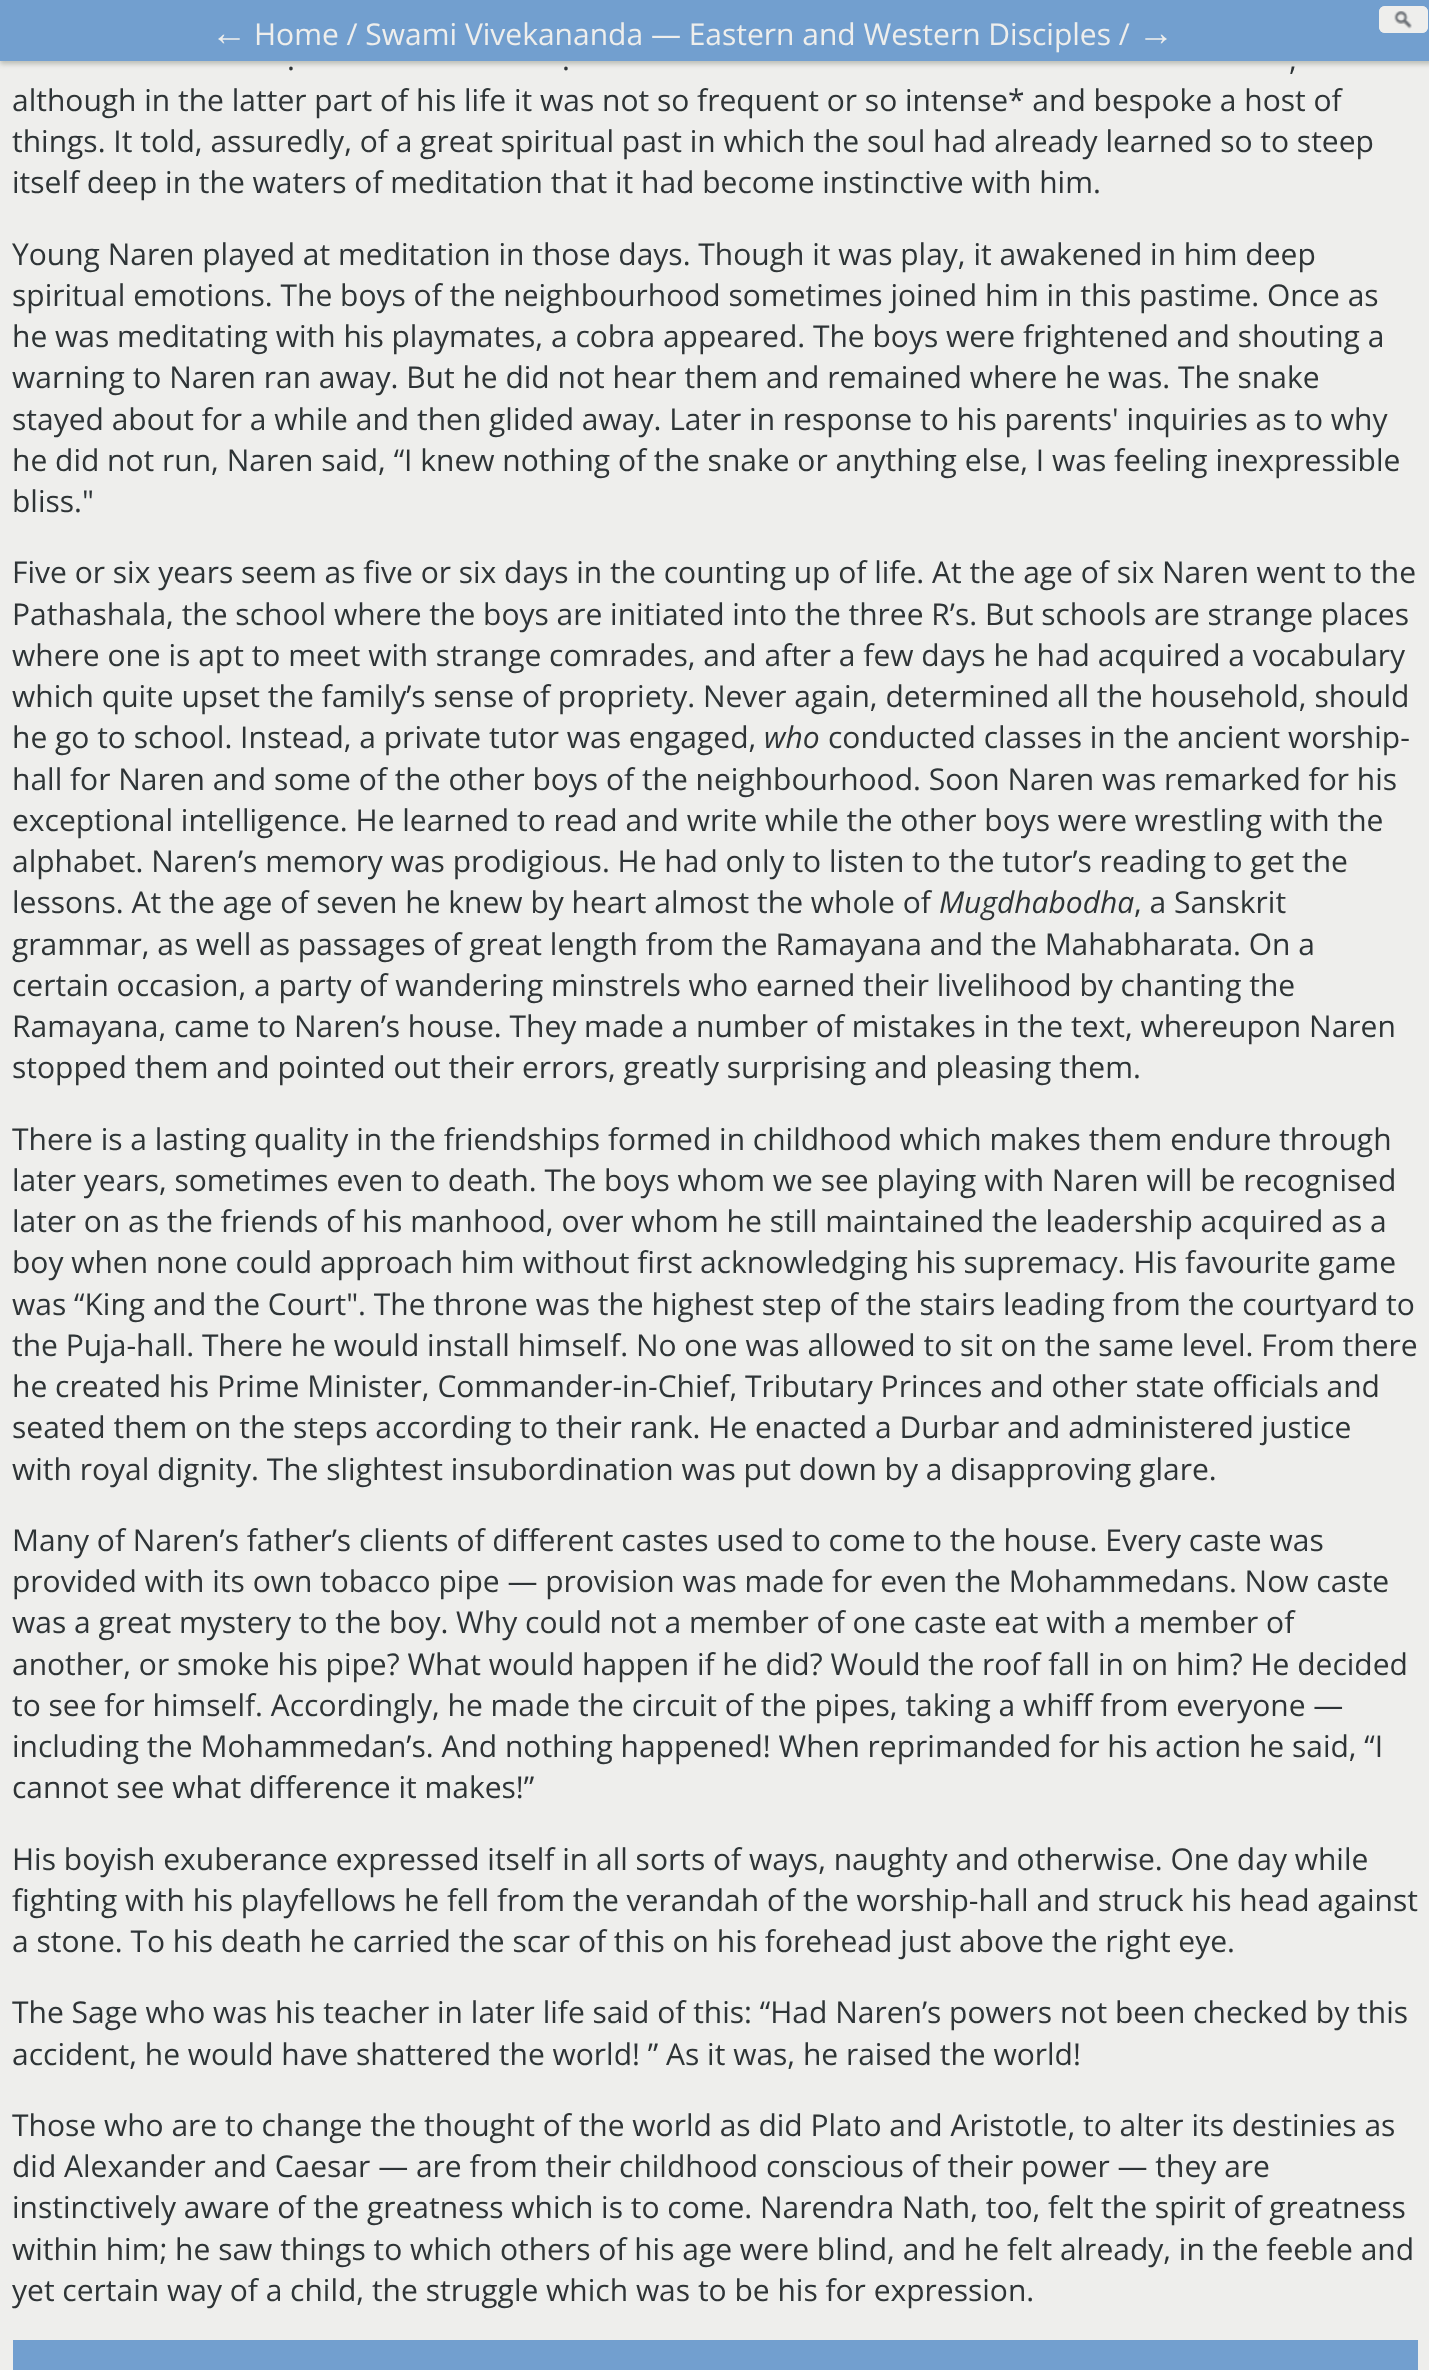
<svg xmlns="http://www.w3.org/2000/svg" width="1429" height="2370">
<rect width="100%" height="100%" fill="#eeeeec"/>
<rect y="3" width="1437" height="61" fill="#babdb6" filter="blur(2.5px)"/>
<rect width="1429" height="61" fill="#729fcf"/>
<text x="211" y="45" style="font-family:Liberation Sans;font-size:36px;font-weight:bold;fill:#eeeeec">←</text>
<text x="254" y="45" style="font-family:Open Sans;font-size:30px;fill:#eeeeec">Home / Swami Vivekananda — Eastern and Western Disciples /</text>
<text x="1138" y="45" style="font-family:Liberation Sans;font-size:36px;font-weight:bold;fill:#eeeeec">→</text>
<rect x="1379" y="6" width="49" height="27" rx="6" fill="#eeeeec"/>
<image x="1394" y="11" width="18" height="18" href="media/1.png"/>
<rect x="1380.5" y="7.5" width="46" height="24" rx="4.5" fill="none" stroke="#eeeeec" stroke-width="3"/>
<text x="287" y="70" style="font-family:Open Sans;font-size:30px;fill:#2e3436">.</text>
<text x="562" y="70" style="font-family:Open Sans;font-size:30px;fill:#2e3436">.</text>
<text x="1289" y="70" style="font-family:Open Sans;font-size:30px;fill:#2e3436">,</text>
<text x="12" y="111" style="font-family:Open Sans;font-size:30px;fill:#2e3436">although in the latter part of his life it was not so frequent or so intense* and bespoke a host of</text>
<text x="12" y="152" style="font-family:Open Sans;font-size:30px;fill:#2e3436">things. It told, assuredly, of a great spiritual past in which the soul had already learned so to steep</text>
<text x="12" y="193" style="font-family:Open Sans;font-size:30px;fill:#2e3436">itself deep in the waters of meditation that it had become instinctive with him.</text>
<text x="12" y="265" style="font-family:Open Sans;font-size:30px;fill:#2e3436">Young Naren played at meditation in those days. Though it was play, it awakened in him deep</text>
<text x="12" y="306" style="font-family:Open Sans;font-size:30px;fill:#2e3436">spiritual emotions. The boys of the neighbourhood sometimes joined him in this pastime. Once as</text>
<text x="12" y="347" style="font-family:Open Sans;font-size:30px;fill:#2e3436">he was meditating with his playmates, a cobra appeared. The boys were frightened and shouting a</text>
<text x="12" y="388" style="font-family:Open Sans;font-size:30px;fill:#2e3436">warning to Naren ran away. But he did not hear them and remained where he was. The snake</text>
<text x="12" y="430" style="font-family:Open Sans;font-size:30px;fill:#2e3436">stayed about for a while and then glided away. Later in response to his parents' inquiries as to why</text>
<text x="12" y="471" style="font-family:Open Sans;font-size:30px;fill:#2e3436">he did not run, Naren said, “I knew nothing of the snake or anything else, I was feeling inexpressible</text>
<text x="12" y="512" style="font-family:Open Sans;font-size:30px;fill:#2e3436">bliss."</text>
<text x="12" y="583" style="font-family:Open Sans;font-size:30px;fill:#2e3436">Five or six years seem as five or six days in the counting up of life. At the age of six Naren went to the</text>
<text x="12" y="625" style="font-family:Open Sans;font-size:30px;fill:#2e3436">Pathashala, the school where the boys are initiated into the three R’s. But schools are strange places</text>
<text x="12" y="666" style="font-family:Open Sans;font-size:30px;fill:#2e3436">where one is apt to meet with strange comrades, and after a few days he had acquired a vocabulary</text>
<text x="12" y="707" style="font-family:Open Sans;font-size:30px;fill:#2e3436">which quite upset the family’s sense of propriety. Never again, determined all the household, should</text>
<text x="12" y="748" style="font-family:Open Sans;font-size:30px;fill:#2e3436">he go to school. Instead, a private tutor was engaged,</text>
<text x="764" y="748" style="font-family:Open Sans;font-size:30px;font-style:italic;fill:#2e3436">who</text>
<text x="828" y="748" style="font-family:Open Sans;font-size:30px;fill:#2e3436">conducted classes in the ancient worship-</text>
<text x="12" y="790" style="font-family:Open Sans;font-size:30px;fill:#2e3436">hall for Naren and some of the other boys of the neighbourhood. Soon Naren was remarked for his</text>
<text x="12" y="831" style="font-family:Open Sans;font-size:30px;fill:#2e3436">exceptional intelligence. He learned to read and write while the other boys were wrestling with the</text>
<text x="12" y="872" style="font-family:Open Sans;font-size:30px;fill:#2e3436">alphabet. Naren’s memory was prodigious. He had only to listen to the tutor’s reading to get the</text>
<text x="12" y="913" style="font-family:Open Sans;font-size:30px;fill:#2e3436">lessons. At the age of seven he knew by heart almost the whole of</text>
<text x="939" y="913" style="font-family:Open Sans;font-size:30px;font-style:italic;fill:#2e3436">Mugdhabodha</text>
<text x="1134" y="913" style="font-family:Open Sans;font-size:30px;fill:#2e3436">, a Sanskrit</text>
<text x="12" y="955" style="font-family:Open Sans;font-size:30px;fill:#2e3436">grammar, as well as passages of great length from the Ramayana and the Mahabharata. On a</text>
<text x="12" y="996" style="font-family:Open Sans;font-size:30px;fill:#2e3436">certain occasion, a party of wandering minstrels who earned their livelihood by chanting the</text>
<text x="12" y="1037" style="font-family:Open Sans;font-size:30px;fill:#2e3436">Ramayana, came to Naren’s house. They made a number of mistakes in the text, whereupon Naren</text>
<text x="12" y="1078" style="font-family:Open Sans;font-size:30px;fill:#2e3436">stopped them and pointed out their errors, greatly surprising and pleasing them.</text>
<text x="12" y="1150" style="font-family:Open Sans;font-size:30px;fill:#2e3436">There is a lasting quality in the friendships formed in childhood which makes them endure through</text>
<text x="12" y="1191" style="font-family:Open Sans;font-size:30px;fill:#2e3436">later years, sometimes even to death. The boys whom we see playing with Naren will be recognised</text>
<text x="12" y="1232" style="font-family:Open Sans;font-size:30px;fill:#2e3436">later on as the friends of his manhood, over whom he still maintained the leadership acquired as a</text>
<text x="12" y="1273" style="font-family:Open Sans;font-size:30px;fill:#2e3436">boy when none could approach him without first acknowledging his supremacy. His favourite game</text>
<text x="12" y="1315" style="font-family:Open Sans;font-size:30px;fill:#2e3436">was “King and the Court". The throne was the highest step of the stairs leading from the courtyard to</text>
<text x="12" y="1356" style="font-family:Open Sans;font-size:30px;fill:#2e3436">the Puja-hall. There he would install himself. No one was allowed to sit on the same level. From there</text>
<text x="12" y="1397" style="font-family:Open Sans;font-size:30px;fill:#2e3436">he created his Prime Minister, Commander-in-Chief, Tributary Princes and other state officials and</text>
<text x="12" y="1438" style="font-family:Open Sans;font-size:30px;fill:#2e3436">seated them on the steps according to their rank. He enacted a Durbar and administered justice</text>
<text x="12" y="1480" style="font-family:Open Sans;font-size:30px;fill:#2e3436">with royal dignity. The slightest insubordination was put down by a disapproving glare.</text>
<text x="12" y="1551" style="font-family:Open Sans;font-size:30px;fill:#2e3436">Many of Naren’s father’s clients of different castes used to come to the house. Every caste was</text>
<text x="12" y="1592" style="font-family:Open Sans;font-size:30px;fill:#2e3436">provided with its own tobacco pipe — provision was made for even the Mohammedans. Now caste</text>
<text x="12" y="1633" style="font-family:Open Sans;font-size:30px;fill:#2e3436">was a great mystery to the boy. Why could not a member of one caste eat with a member of</text>
<text x="12" y="1675" style="font-family:Open Sans;font-size:30px;fill:#2e3436">another, or smoke his pipe? What would happen if he did? Would the roof fall in on him? He decided</text>
<text x="12" y="1716" style="font-family:Open Sans;font-size:30px;fill:#2e3436">to see for himself. Accordingly, he made the circuit of the pipes, taking a whiff from everyone —</text>
<text x="12" y="1757" style="font-family:Open Sans;font-size:30px;fill:#2e3436">including the Mohammedan’s. And nothing happened! When reprimanded for his action he said, “I</text>
<text x="12" y="1798" style="font-family:Open Sans;font-size:30px;fill:#2e3436">cannot see what difference it makes!”</text>
<text x="12" y="1870" style="font-family:Open Sans;font-size:30px;fill:#2e3436">His boyish exuberance expressed itself in all sorts of ways, naughty and otherwise. One day while</text>
<text x="12" y="1911" style="font-family:Open Sans;font-size:30px;fill:#2e3436">fighting with his playfellows he fell from the verandah of the worship-hall and struck his head against</text>
<text x="12" y="1952" style="font-family:Open Sans;font-size:30px;fill:#2e3436">a stone. To his death he carried the scar of this on his forehead just above the right eye.</text>
<text x="12" y="2023" style="font-family:Open Sans;font-size:30px;fill:#2e3436">The Sage who was his teacher in later life said of this: “Had Naren’s powers not been checked by this</text>
<text x="12" y="2065" style="font-family:Open Sans;font-size:30px;fill:#2e3436">accident, he would have shattered the world! ” As it was, he raised the world!</text>
<text x="12" y="2136" style="font-family:Open Sans;font-size:30px;fill:#2e3436">Those who are to change the thought of the world as did Plato and Aristotle, to alter its destinies as</text>
<text x="12" y="2177" style="font-family:Open Sans;font-size:30px;fill:#2e3436">did Alexander and Caesar — are from their childhood conscious of their power — they are</text>
<text x="12" y="2218" style="font-family:Open Sans;font-size:30px;fill:#2e3436">instinctively aware of the greatness which is to come. Narendra Nath, too, felt the spirit of greatness</text>
<text x="12" y="2260" style="font-family:Open Sans;font-size:30px;fill:#2e3436">within him; he saw things to which others of his age were blind, and he felt already, in the feeble and</text>
<text x="12" y="2301" style="font-family:Open Sans;font-size:30px;fill:#2e3436">yet certain way of a child, the struggle which was to be his for expression.</text>
<rect x="13" y="2340" width="1405" height="30" fill="#729fcf"/>
</svg>
